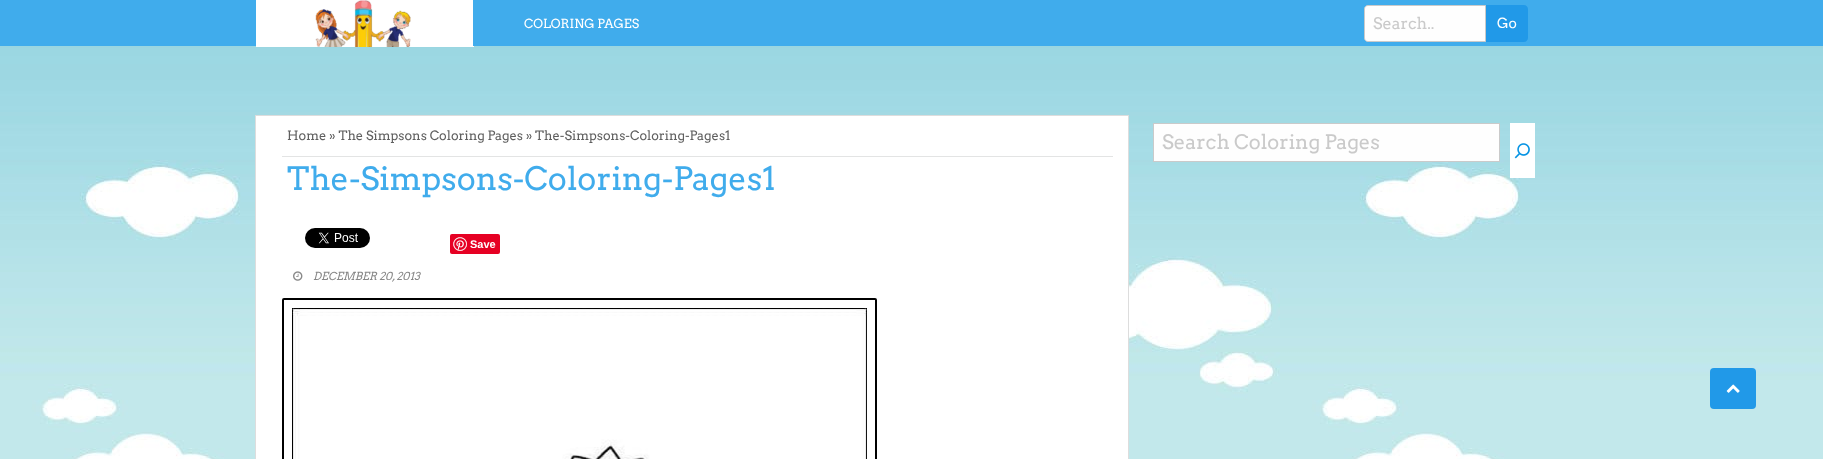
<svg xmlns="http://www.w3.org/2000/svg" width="1823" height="459">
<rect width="100%" height="100%" fill="#fff"/>
<image x="0" y="46" width="1823" height="413" href="media/1.png"/>
<rect width="1823" height="46" fill="#40acec"/>
<rect x="256" width="218" height="47" fill="#fff"/>
<image x="315" y="0" width="96" height="47" href="media/2.png"/>
<rect x="473" width="1" height="46" fill="#40acec"/>
<text x="524" y="28" style="font-family:Arvo;font-size:12.5px;fill:#fff">COLORING PAGES</text>
<path d="M1368 5.5h117.5v36h-117.5c-2 0-3.5-1.5-3.5-3.5v-29c0-2 1.5-3.5 3.5-3.5z" fill="#fefefe" stroke="#cacaca"/>
<text x="1373" y="29" style="font-family:Arvo;font-size:16px;fill:#cacaca">Search..</text>
<path d="M1486 5h38c2 0 4 2 4 4v29c0 2-2 4-4 4h-38z" fill="#2199e8"/>
<text x="1497" y="28" style="font-family:Arvo;font-size:14px;fill:#fff">Go</text>
<rect x="255.5" y="115.5" width="873" height="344" fill="#fff" stroke="#ddd"/>
<rect x="282" y="156" width="831" height="1" fill="#e3e4e4"/>
<text x="287" y="140" style="font-family:Arvo;font-size:12.8px;fill:#5f5f5f">Home » The Simpsons Coloring Pages » The-Simpsons-Coloring-Pages1</text>
<text x="287" y="190" style="font-family:Arvo;font-size:32px;fill:#40acec">The-Simpsons-Coloring-Pages1</text>
<image x="305" y="228" width="65" height="20" href="media/3.png"/>
<rect x="450" y="234" width="50" height="20" rx="2" fill="#e60023"/>
<image x="453" y="237" width="14" height="14" href="media/4.png"/>
<text x="470" y="248" style="font-family:Liberation Sans;font-size:11px;font-weight:bold;fill:#fff">Save</text>
<image x="293" y="271" width="10" height="10" href="media/5.png"/>
<text x="313" y="280" style="font-family:Arvo;font-size:11px;font-style:italic;fill:#888">DECEMBER 20, 2013</text>
<rect x="283" y="299" width="593" height="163" rx="1" fill="none" stroke="#000" stroke-width="2"/>
<image x="292" y="308" width="575" height="151" href="media/6.png"/>
<rect x="1153.5" y="123.5" width="346" height="38" fill="#fefefe" stroke="#cacaca"/>
<text x="1162" y="149" style="font-family:Arvo;font-size:20px;fill:#cacaca">Search Coloring Pages</text>
<rect x="1510" y="123" width="25" height="55" fill="#fff"/>
<image x="1514" y="143" width="16" height="16" href="media/7.png"/>
<rect x="1710" y="368" width="46" height="41" rx="4" fill="#2199e8"/>
<image x="1726" y="384" width="14" height="9" href="media/8.png"/>
</svg>
